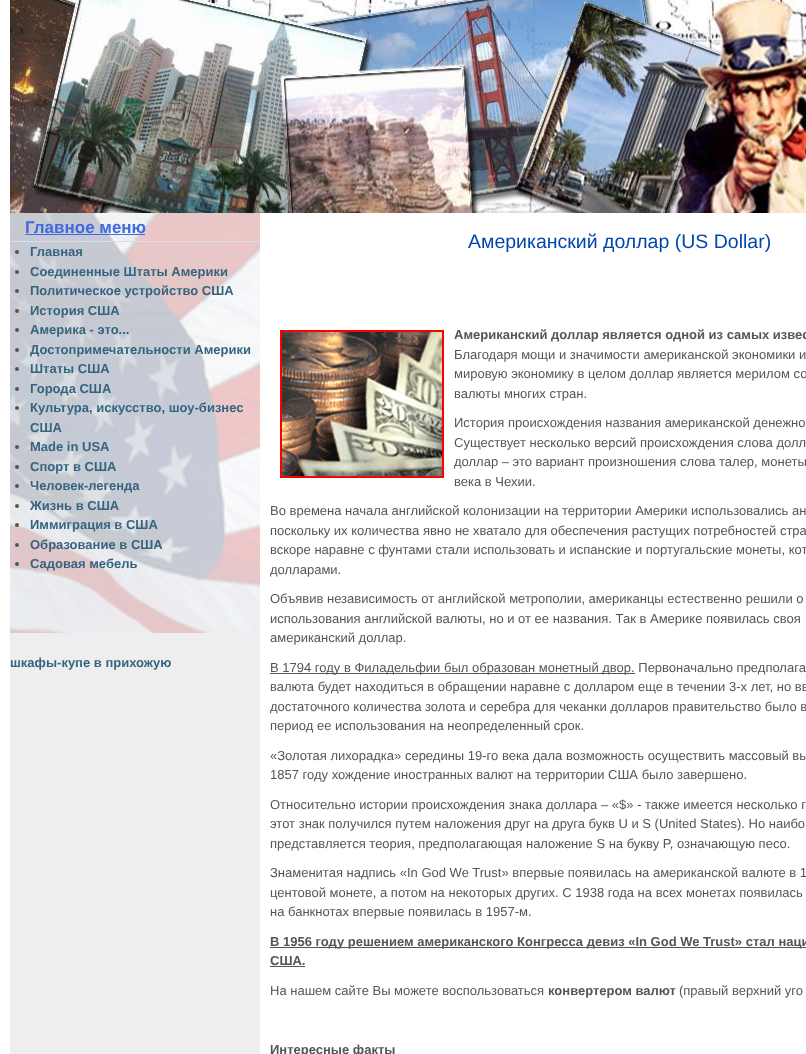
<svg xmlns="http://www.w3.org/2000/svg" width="806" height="1054">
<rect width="100%" height="100%" fill="#fff"/>
<image x="10" y="0" width="796" height="213" href="media/1.png"/>
<rect x="10" y="633" width="250" height="421" fill="#eee"/>
<image x="10" y="213" width="250" height="420" href="media/2.png"/>
<rect x="10" y="241" width="250" height="1" fill="#ddd"/>
<text x="25" y="233" style="font-family:Liberation Sans;font-size:17px;font-weight:bold;fill:#4169e1">Главное меню</text>
<rect x="25" y="234" width="120" height="1" fill="#4169e1"/>
<circle cx="17" cy="252" r="2" fill="#555"/>
<text x="30" y="256" style="font-family:Liberation Sans;font-size:13px;font-weight:bold;fill:#34647f">Главная</text>
<circle cx="17" cy="272" r="2" fill="#555"/>
<text x="30" y="276" style="font-family:Liberation Sans;font-size:13px;font-weight:bold;fill:#34647f">Соединенные Штаты Америки</text>
<circle cx="17" cy="291" r="2" fill="#555"/>
<text x="30" y="295" style="font-family:Liberation Sans;font-size:13px;font-weight:bold;fill:#34647f">Политическое устройство США</text>
<circle cx="17" cy="311" r="2" fill="#555"/>
<text x="30" y="315" style="font-family:Liberation Sans;font-size:13px;font-weight:bold;fill:#34647f">История США</text>
<circle cx="17" cy="330" r="2" fill="#555"/>
<text x="30" y="334" style="font-family:Liberation Sans;font-size:13px;font-weight:bold;fill:#34647f">Америка - это...</text>
<circle cx="17" cy="350" r="2" fill="#555"/>
<text x="30" y="354" style="font-family:Liberation Sans;font-size:13px;font-weight:bold;fill:#34647f">Достопримечательности Америки</text>
<circle cx="17" cy="369" r="2" fill="#555"/>
<text x="30" y="373" style="font-family:Liberation Sans;font-size:13px;font-weight:bold;fill:#34647f">Штаты США</text>
<circle cx="17" cy="389" r="2" fill="#555"/>
<text x="30" y="393" style="font-family:Liberation Sans;font-size:13px;font-weight:bold;fill:#34647f">Города США</text>
<circle cx="17" cy="408" r="2" fill="#555"/>
<text x="30" y="412" style="font-family:Liberation Sans;font-size:13px;font-weight:bold;fill:#34647f">Культура, искусство, шоу-бизнес</text>
<text x="30" y="432" style="font-family:Liberation Sans;font-size:13px;font-weight:bold;fill:#34647f">США</text>
<circle cx="17" cy="447" r="2" fill="#555"/>
<text x="30" y="451" style="font-family:Liberation Sans;font-size:13px;font-weight:bold;fill:#34647f">Made in USA</text>
<circle cx="17" cy="467" r="2" fill="#555"/>
<text x="30" y="471" style="font-family:Liberation Sans;font-size:13px;font-weight:bold;fill:#34647f">Спорт в США</text>
<circle cx="17" cy="486" r="2" fill="#555"/>
<text x="30" y="490" style="font-family:Liberation Sans;font-size:13px;font-weight:bold;fill:#34647f">Человек-легенда</text>
<circle cx="17" cy="506" r="2" fill="#555"/>
<text x="30" y="510" style="font-family:Liberation Sans;font-size:13px;font-weight:bold;fill:#34647f">Жизнь в США</text>
<circle cx="17" cy="525" r="2" fill="#555"/>
<text x="30" y="529" style="font-family:Liberation Sans;font-size:13px;font-weight:bold;fill:#34647f">Иммиграция в США</text>
<circle cx="17" cy="545" r="2" fill="#555"/>
<text x="30" y="549" style="font-family:Liberation Sans;font-size:13px;font-weight:bold;fill:#34647f">Образование в США</text>
<circle cx="17" cy="564" r="2" fill="#555"/>
<text x="30" y="568" style="font-family:Liberation Sans;font-size:13px;font-weight:bold;fill:#34647f">Садовая мебель</text>
<text x="10" y="667" style="font-family:Liberation Sans;font-size:13px;font-weight:bold;fill:#34647f">шкафы-купе в прихожую</text>
<text x="468" y="248" style="font-family:Liberation Sans;font-size:19.5px;fill:#0047ab">Американский доллар (US Dollar)</text>
<rect x="281" y="331" width="162" height="146" fill="none" stroke="#f00" stroke-width="2"/>
<image x="282" y="332" width="160" height="144" href="media/3.png"/>
<text x="454" y="339" style="font-family:Liberation Sans;font-size:13px;font-weight:bold;fill:#555">Американский доллар является одной из самых извес</text>
<text x="454" y="359" style="font-family:Liberation Sans;font-size:13px;fill:#555">Благодаря мощи и значимости американской экономики и</text>
<text x="454" y="378" style="font-family:Liberation Sans;font-size:13px;fill:#555">мировую экономику в целом доллар является мерилом со</text>
<text x="454" y="398" style="font-family:Liberation Sans;font-size:13px;fill:#555">валюты многих стран.</text>
<text x="454" y="427" style="font-family:Liberation Sans;font-size:13px;fill:#555">История происхождения названия американской денежно</text>
<text x="454" y="447" style="font-family:Liberation Sans;font-size:13px;fill:#555">Существует несколько версий происхождения слова долл</text>
<text x="454" y="466" style="font-family:Liberation Sans;font-size:13px;fill:#555">доллар – это вариант произношения слова талер, монеты</text>
<text x="454" y="486" style="font-family:Liberation Sans;font-size:13px;fill:#555">века в Чехии.</text>
<text x="270" y="515" style="font-family:Liberation Sans;font-size:13px;fill:#555">Во времена начала английской колонизации на территории Америки использовались ан</text>
<text x="270" y="535" style="font-family:Liberation Sans;font-size:13px;fill:#555">поскольку их количества явно не хватало для обеспечения растущих потребностей стра</text>
<text x="270" y="554" style="font-family:Liberation Sans;font-size:13px;fill:#555">вскоре наравне с фунтами стали использовать и испанские и португальские монеты, кот</text>
<text x="270" y="574" style="font-family:Liberation Sans;font-size:13px;fill:#555">долларами.</text>
<text x="270" y="603" style="font-family:Liberation Sans;font-size:13px;fill:#555">Объявив независимость от английской метрополии, американцы естественно решили о</text>
<text x="270" y="623" style="font-family:Liberation Sans;font-size:13px;fill:#555">использования английской валюты, но и от ее названия. Так в Америке появилась своя</text>
<text x="270" y="642" style="font-family:Liberation Sans;font-size:13px;fill:#555">американский доллар.</text>
<rect x="270" y="673" width="365" height="1" fill="#555"/>
<text x="270" y="672" style="font-family:Liberation Sans;font-size:13px;fill:#555">В 1794 году в Филадельфии был образован монетный двор. Первоначально предполага</text>
<text x="270" y="691" style="font-family:Liberation Sans;font-size:13px;fill:#555">валюта будет находиться в обращении наравне с долларом еще в течении 3-х лет, но вв</text>
<text x="270" y="711" style="font-family:Liberation Sans;font-size:13px;fill:#555">достаточного количества золота и серебра для чеканки долларов правительство было в</text>
<text x="270" y="730" style="font-family:Liberation Sans;font-size:13px;fill:#555">период ее использования на неопределенный срок.</text>
<text x="270" y="760" style="font-family:Liberation Sans;font-size:13px;fill:#555">«Золотая лихорадка» середины 19-го века дала возможность осуществить массовый вы</text>
<text x="270" y="779" style="font-family:Liberation Sans;font-size:13px;fill:#555">1857 году хождение иностранных валют на территории США было завершено.</text>
<text x="270" y="809" style="font-family:Liberation Sans;font-size:13px;fill:#555">Относительно истории происхождения знака доллара – «$» - также имеется несколько г</text>
<text x="270" y="828" style="font-family:Liberation Sans;font-size:13px;fill:#555">этот знак получился путем наложения друг на друга букв U и S (United States). Но наибо</text>
<text x="270" y="848" style="font-family:Liberation Sans;font-size:13px;fill:#555">представляется теория, предполагающая наложение S на букву P, означающую песо.</text>
<text x="270" y="877" style="font-family:Liberation Sans;font-size:13px;fill:#555">Знаменитая надпись «In God We Trust» впервые появилась на американской валюте в 1</text>
<text x="270" y="897" style="font-family:Liberation Sans;font-size:13px;fill:#555">центовой монете, а потом на некоторых других. С 1938 года на всех монетах появилась</text>
<text x="270" y="916" style="font-family:Liberation Sans;font-size:13px;fill:#555">на банкнотах впервые появилась в 1957-м.</text>
<rect x="270" y="947" width="536" height="1" fill="#555"/>
<text x="270" y="946" style="font-family:Liberation Sans;font-size:13px;font-weight:bold;fill:#555">В 1956 году решением американского Конгресса девиз «In God We Trust» стал наци</text>
<text x="270" y="965" style="font-family:Liberation Sans;font-size:13px;font-weight:bold;fill:#555">США.</text>
<rect x="270" y="966" width="35" height="1" fill="#555"/>
<text x="270" y="995" style="font-family:Liberation Sans;font-size:13px;fill:#555">На нашем сайте Вы можете воспользоваться</text>
<text x="548" y="995" style="font-family:Liberation Sans;font-size:13px;font-weight:bold;fill:#555">конвертером валют</text>
<text x="679" y="995" style="font-family:Liberation Sans;font-size:13px;fill:#555">(правый верхний уго</text>
<text x="270" y="1054" style="font-family:Liberation Sans;font-size:13px;font-weight:bold;fill:#555">Интересные факты</text>
</svg>
